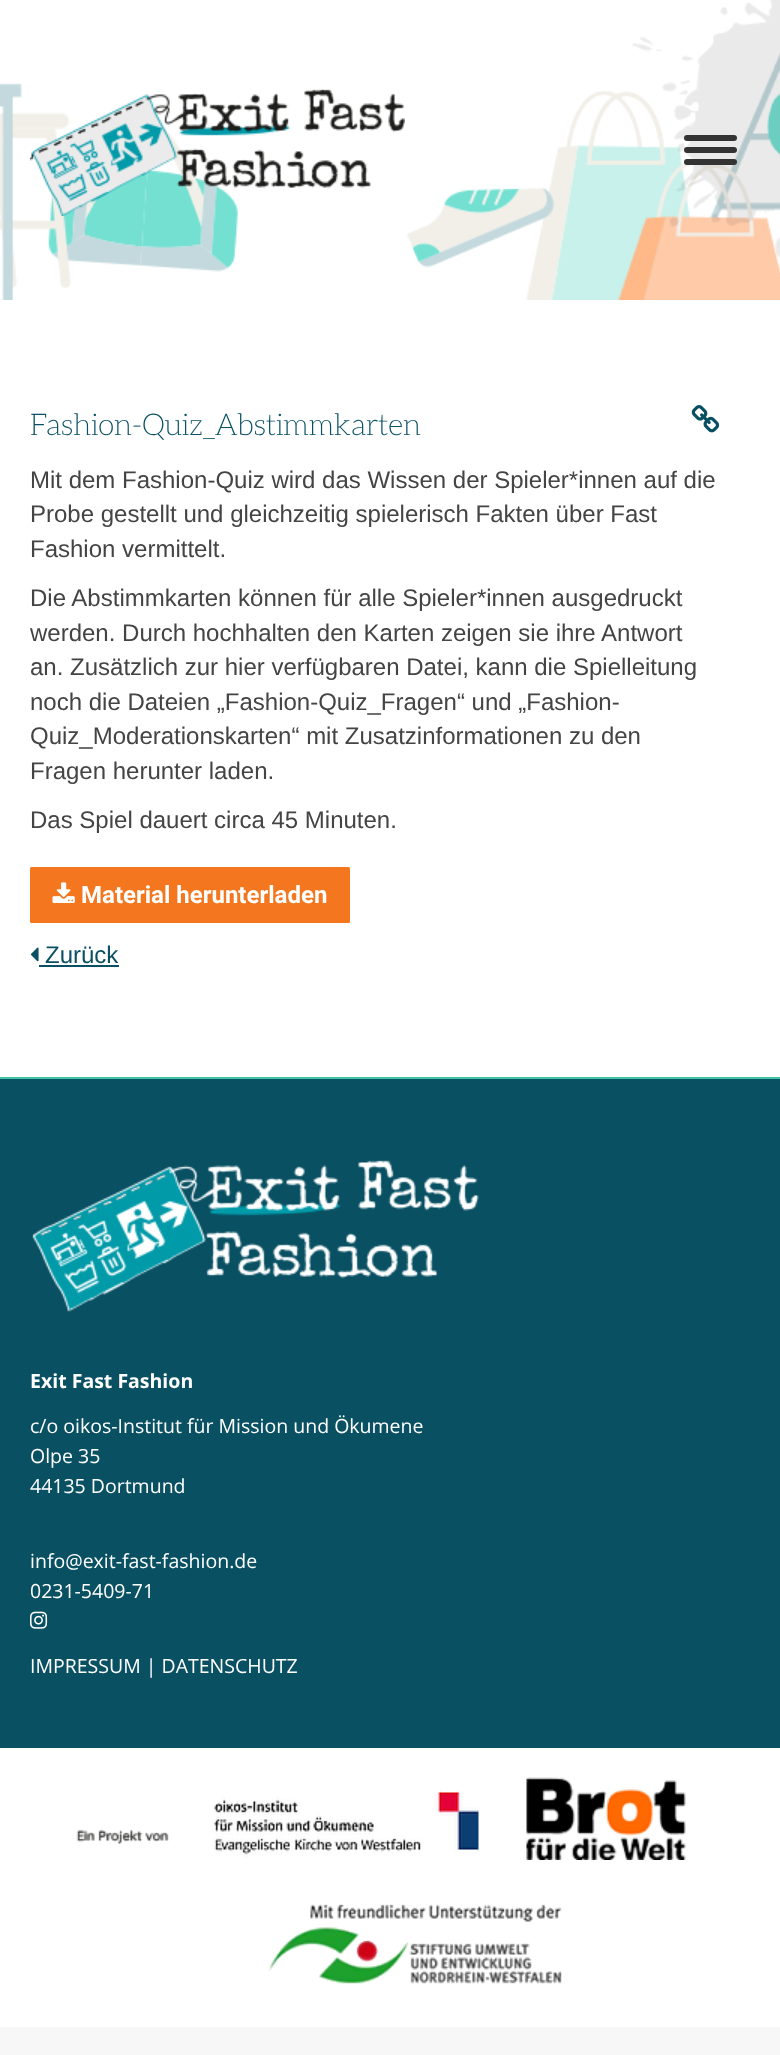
<svg xmlns="http://www.w3.org/2000/svg" width="780" height="2055">
<rect width="100%" height="100%" fill="#f7f7f7"/>
<rect width="780" height="1077" fill="#fff"/>
<image x="0" y="0" width="780" height="300" href="media/1.png"/>
<image x="30" y="89" width="375" height="127" href="media/2.png"/>
<rect x="684" y="135" width="53" height="6" rx="3" fill="#333"/>
<rect x="684" y="147" width="53" height="6" rx="3" fill="#333"/>
<rect x="684" y="159" width="53" height="6" rx="3" fill="#333"/>
<text x="30" y="435" style="font-family:Aleo;font-size:30px;font-weight:200;fill:#095063">Fashion-Quiz_Abstimmkarten</text>
<image x="691" y="405" width="29" height="28" href="media/3.png"/>
<text x="30" y="488" style="font-family:Liberation Sans;font-size:24px;fill:#444">Mit dem Fashion-Quiz wird das Wissen der Spieler*innen auf die</text>
<text x="30" y="522" style="font-family:Liberation Sans;font-size:24px;fill:#444">Probe gestellt und gleichzeitig spielerisch Fakten über Fast</text>
<text x="30" y="557" style="font-family:Liberation Sans;font-size:24px;fill:#444">Fashion vermittelt.</text>
<text x="30" y="606" style="font-family:Liberation Sans;font-size:24px;fill:#444">Die Abstimmkarten können für alle Spieler*innen ausgedruckt</text>
<text x="30" y="641" style="font-family:Liberation Sans;font-size:24px;fill:#444">werden. Durch hochhalten den Karten zeigen sie ihre Antwort</text>
<text x="30" y="675" style="font-family:Liberation Sans;font-size:24px;fill:#444">an. Zusätzlich zur hier verfügbaren Datei, kann die Spielleitung</text>
<text x="30" y="710" style="font-family:Liberation Sans;font-size:24px;fill:#444">noch die Dateien „Fashion-Quiz_Fragen“ und „Fashion-</text>
<text x="30" y="744" style="font-family:Liberation Sans;font-size:24px;fill:#444">Quiz_Moderationskarten“ mit Zusatzinformationen zu den</text>
<text x="30" y="779" style="font-family:Liberation Sans;font-size:24px;fill:#444">Fragen herunter laden.</text>
<text x="30" y="828" style="font-family:Liberation Sans;font-size:24px;fill:#444">Das Spiel dauert circa 45 Minuten.</text>
<rect x="30" y="867" width="320" height="56" rx="1.5" fill="#f47720"/>
<image x="52" y="882" width="23" height="21" href="media/4.png"/>
<text x="81" y="903" style="font-family:Roboto;font-size:24px;font-weight:bold;fill:#fff">Material herunterladen</text>
<image x="30" y="947" width="9" height="15" href="media/5.png"/>
<text x="45" y="963" style="font-family:Liberation Sans;font-size:24px;fill:#095063">Zurück</text>
<rect x="39" y="965" width="80" height="2" fill="#095063"/>
<rect y="1079" width="780" height="669" fill="#095063"/>
<rect y="1077" width="780" height="2" fill="#40c3a7"/>
<image x="32" y="1160" width="447" height="152" href="media/6.png"/>
<text x="30" y="1388" style="font-family:Open Sans;font-size:19.5px;font-weight:bold;fill:#fff">Exit Fast Fashion</text>
<text x="30" y="1433" style="font-family:Open Sans;font-size:19.5px;fill:#fff">c/o oikos-Institut für Mission und Ökumene</text>
<text x="30" y="1463" style="font-family:Open Sans;font-size:19.5px;fill:#fff">Olpe 35</text>
<text x="30" y="1493" style="font-family:Open Sans;font-size:19.5px;fill:#fff">44135 Dortmund</text>
<text x="30" y="1568" style="font-family:Open Sans;font-size:19.5px;fill:#fff">info@exit-fast-fashion.de</text>
<text x="30" y="1598" style="font-family:Open Sans;font-size:19.5px;fill:#fff">0231-5409-71</text>
<image x="30" y="1611" width="18" height="18" href="media/7.png"/>
<text x="30" y="1673" style="font-family:Open Sans;font-size:19.5px;fill:#fff">IMPRESSUM | DATENSCHUTZ</text>
<rect y="1748" width="780" height="279" fill="#fff"/>
<image x="76" y="1829" width="93" height="15" href="media/8.png"/>
<image x="212" y="1791" width="267" height="66" href="media/9.png"/>
<image x="526" y="1777" width="160" height="83" href="media/10.png"/>
<image x="268" y="1904" width="294" height="80" href="media/11.png"/>
</svg>
